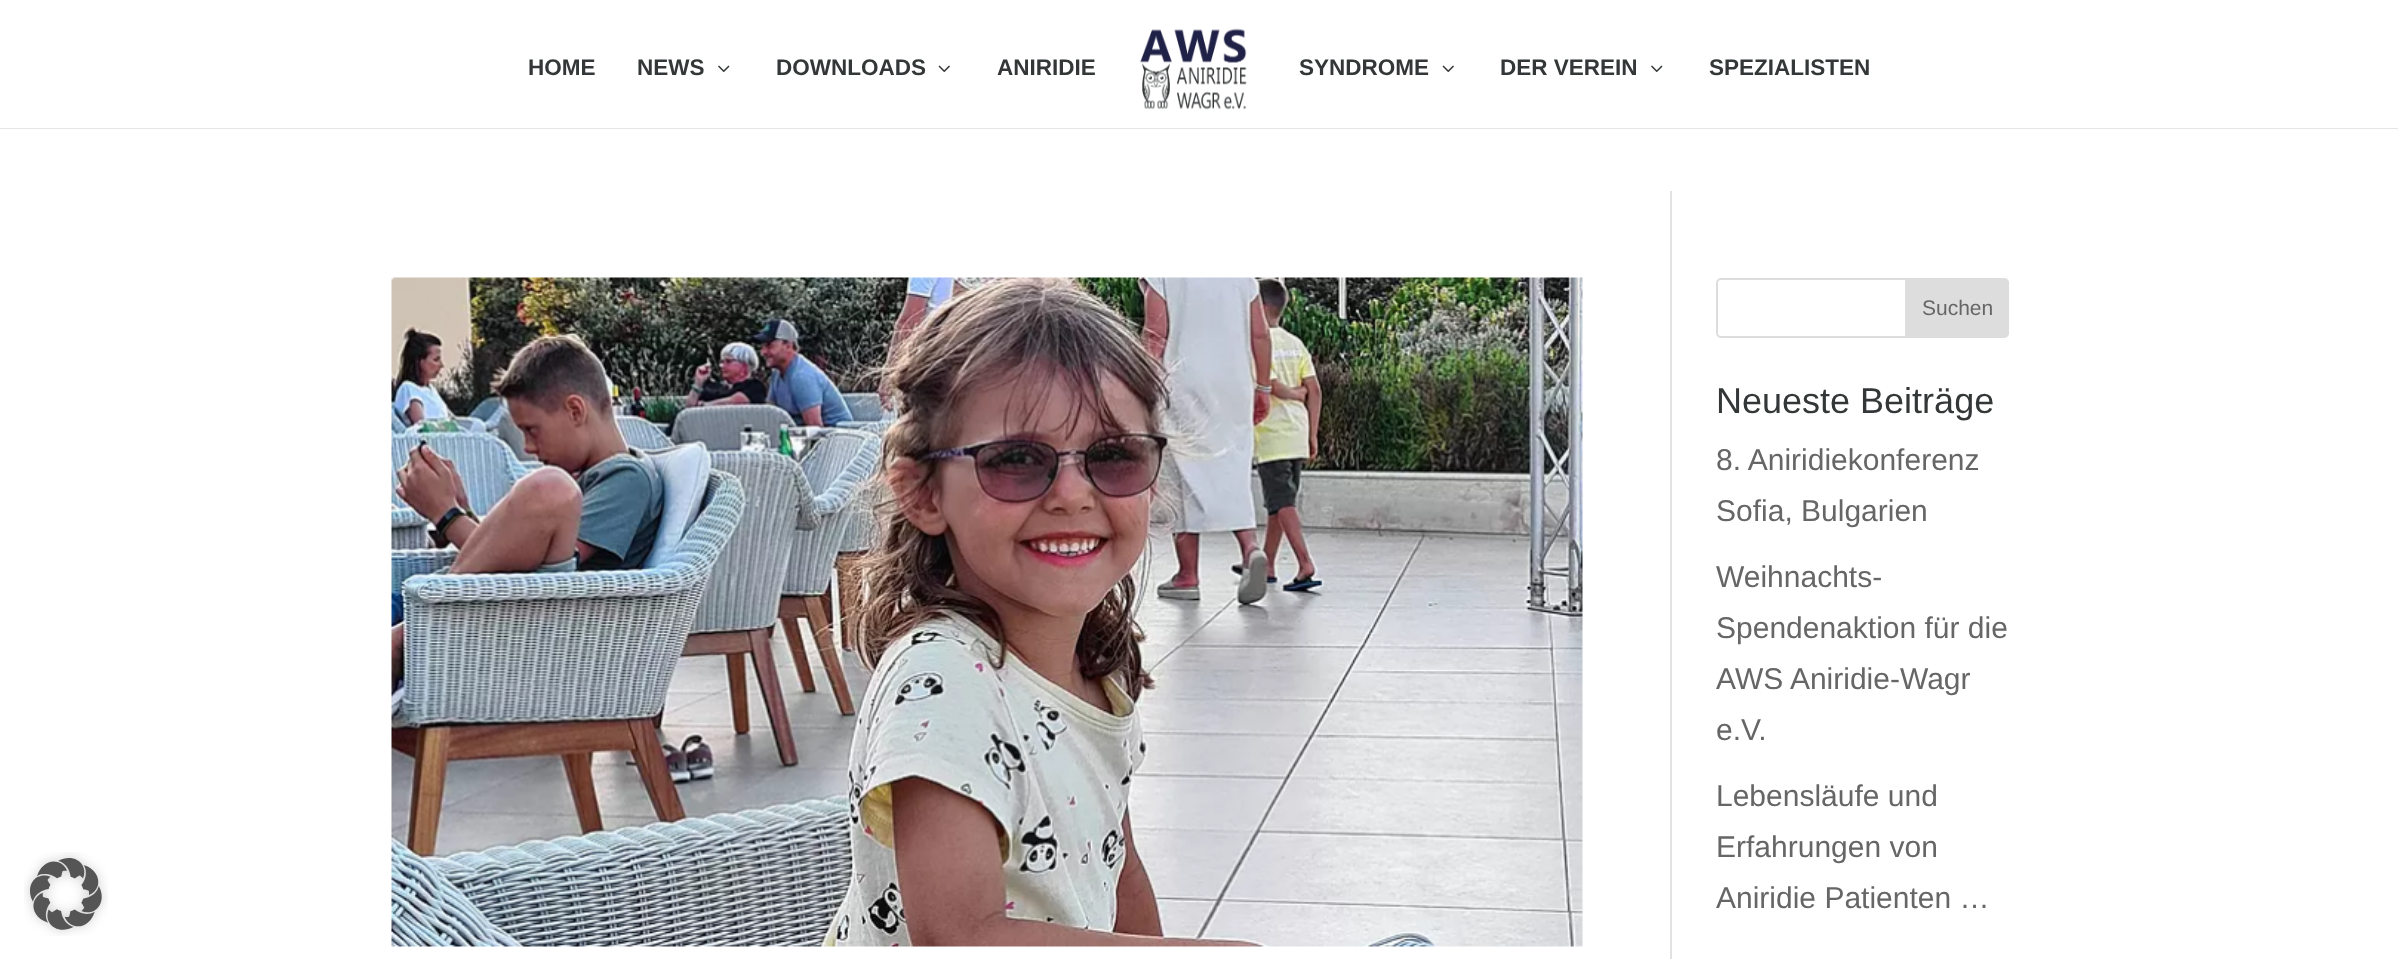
<svg xmlns="http://www.w3.org/2000/svg" width="2398" height="959">
<rect width="100%" height="100%" fill="#fff"/>
<image x="24" y="852" width="84" height="84" href="media/1.png"/>
<path d="M0 128v1h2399v-127h-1v126z" fill="#e6e6e6"/>
<text x="528" y="75" style="font-family:Liberation Sans;font-size:22.5px;font-weight:bold;fill:#343738">HOME</text>
<text x="637" y="75" style="font-family:Liberation Sans;font-size:22.5px;font-weight:bold;fill:#343738">NEWS</text>
<image x="718" y="65" width="12" height="7" href="media/2.png"/>
<text x="776" y="75" style="font-family:Liberation Sans;font-size:22.5px;font-weight:bold;fill:#343738">DOWNLOADS</text>
<image x="938" y="65" width="12" height="7" href="media/3.png"/>
<text x="997" y="75" style="font-family:Liberation Sans;font-size:22.5px;font-weight:bold;fill:#343738">ANIRIDIE</text>
<image x="1140" y="28" width="107" height="82" href="media/4.png"/>
<text x="1299" y="75" style="font-family:Liberation Sans;font-size:22.5px;font-weight:bold;fill:#343738">SYNDROME</text>
<image x="1442" y="65" width="12" height="7" href="media/3.png"/>
<text x="1500" y="75" style="font-family:Liberation Sans;font-size:22.5px;font-weight:bold;fill:#343738">DER VEREIN</text>
<image x="1651" y="65" width="12" height="7" href="media/2.png"/>
<text x="1709" y="75" style="font-family:Liberation Sans;font-size:22.5px;font-weight:bold;fill:#343738">SPEZIALISTEN</text>
<rect x="1670" y="191" width="2" height="768" fill="#e2e2e2"/>
<image x="391" y="277" width="1192" height="670" href="media/5.png"/>
<rect x="1717" y="279" width="291" height="58" rx="4" fill="none" stroke="#ddd" stroke-width="2"/>
<path d="M1906 279h98c2 0 4 2 4 4v50c0 2-2 4-4 4h-98z" fill="#ddd" stroke="#ddd" stroke-width="2"/>
<text x="1922" y="315" style="font-family:Liberation Sans;font-size:21px;fill:#666">Suchen</text>
<text x="1716" y="413" style="font-family:Liberation Sans;font-size:36px;fill:#343738">Neueste Beiträge</text>
<text x="1716" y="470" style="font-family:Liberation Sans;font-size:30px;fill:#666">8. Aniridiekonferenz</text>
<text x="1716" y="521" style="font-family:Liberation Sans;font-size:30px;fill:#666">Sofia, Bulgarien</text>
<text x="1716" y="587" style="font-family:Liberation Sans;font-size:30px;fill:#666">Weihnachts-</text>
<text x="1716" y="638" style="font-family:Liberation Sans;font-size:30px;fill:#666">Spendenaktion für die</text>
<text x="1716" y="689" style="font-family:Liberation Sans;font-size:30px;fill:#666">AWS Aniridie-Wagr</text>
<text x="1716" y="740" style="font-family:Liberation Sans;font-size:30px;fill:#666">e.V.</text>
<text x="1716" y="806" style="font-family:Liberation Sans;font-size:30px;fill:#666">Lebensläufe und</text>
<text x="1716" y="857" style="font-family:Liberation Sans;font-size:30px;fill:#666">Erfahrungen von</text>
<text x="1716" y="908" style="font-family:Liberation Sans;font-size:30px;fill:#666">Aniridie Patienten …</text>
</svg>
